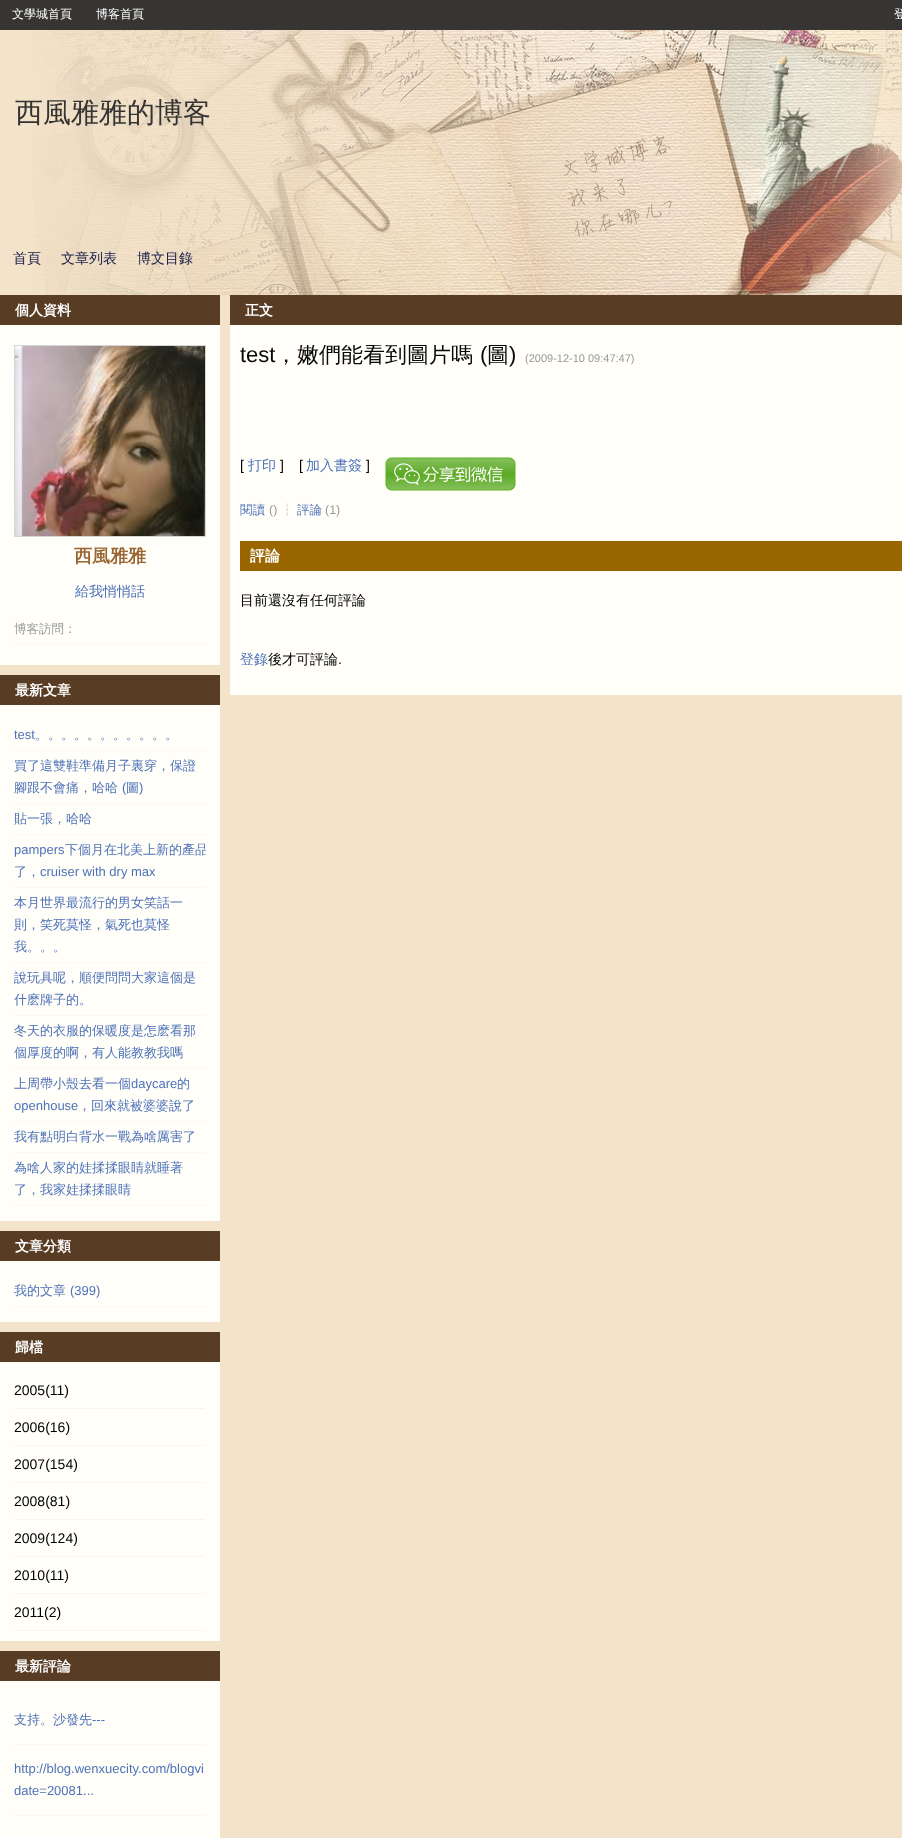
<svg xmlns="http://www.w3.org/2000/svg" width="902" height="1838">
<defs>
<clipPath id="clip1"><rect x="14" y="839" width="192" height="44"/></clipPath>
<clipPath id="clip2"><rect x="240" y="345" width="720" height="23"/></clipPath>
</defs>
<rect width="100%" height="100%" fill="#f3e3ca"/>
<rect width="902" height="30" fill="#373533"/>
<text x="12" y="18" style="font-family:WenQuanYi Zen Hei;font-size:12px;font-weight:500;fill:#fff">文學城首頁</text>
<text x="96" y="18" style="font-family:WenQuanYi Zen Hei;font-size:12px;font-weight:500;fill:#fff">博客首頁</text>
<text x="894" y="18" style="font-family:WenQuanYi Zen Hei;font-size:12px;font-weight:500;fill:#fff">登</text>
<image x="32" y="30" width="870" height="265" href="media/1.png"/>
<text x="15" y="122" style="font-family:WenQuanYi Zen Hei;font-size:28px;font-weight:500;fill:#333">西風雅雅的博客</text>
<text x="13" y="263" style="font-family:WenQuanYi Zen Hei;font-size:14px;font-weight:500;fill:#181d4b">首頁</text>
<text x="61" y="263" style="font-family:WenQuanYi Zen Hei;font-size:14px;font-weight:500;fill:#181d4b">文章列表</text>
<text x="137" y="263" style="font-family:WenQuanYi Zen Hei;font-size:14px;font-weight:500;fill:#181d4b">博文目錄</text>
<rect y="295" width="220" height="30" fill="#583d24"/>
<text x="15" y="315" style="font-family:WenQuanYi Zen Hei;font-size:14px;font-weight:bold;fill:#fff">個人資料</text>
<rect y="325" width="220" height="340" fill="#fffef9"/>
<rect x="14.5" y="345.5" width="191" height="191" fill="none" stroke="#d3d7d4"/>
<image x="15" y="346" width="190" height="190" href="media/2.png"/>
<text x="74" y="562" style="font-family:WenQuanYi Zen Hei;font-size:18px;font-weight:bold;fill:#963">西風雅雅</text>
<text x="75" y="596" style="font-family:WenQuanYi Zen Hei;font-size:14px;font-weight:500;fill:#4e72b8">給我悄悄話</text>
<rect x="14" y="644" width="192" height="1" fill="#f8f8f8"/>
<text x="14" y="633" style="font-family:WenQuanYi Zen Hei;font-size:12.5px;font-weight:500;fill:#999">博客訪問：</text>
<rect y="675" width="220" height="30" fill="#583d24"/>
<text x="15" y="695" style="font-family:WenQuanYi Zen Hei;font-size:14px;font-weight:bold;fill:#fff">最新文章</text>
<rect y="705" width="220" height="516" fill="#fffef9"/>
<rect x="14" y="750" width="192" height="1" fill="#f8f8f8"/>
<text x="14" y="739" style="font-family:Liberation Sans;font-size:13px;fill:#4e72b8">test</text>
<text x="35" y="739" style="font-family:WenQuanYi Zen Hei;font-size:13px;font-weight:500;fill:#4e72b8">。。。。。。。。。。。</text>
<rect x="14" y="803" width="192" height="1" fill="#f8f8f8"/>
<text x="14" y="770" style="font-family:WenQuanYi Zen Hei;font-size:13px;font-weight:500;fill:#4e72b8">買了這雙鞋準備月子裏穿，保證</text>
<text x="14" y="792" style="font-family:WenQuanYi Zen Hei;font-size:13px;font-weight:500;fill:#4e72b8">腳跟不會痛，哈哈</text>
<text x="122" y="792" style="font-family:Liberation Sans;font-size:13px;fill:#4e72b8">(</text>
<text x="126" y="792" style="font-family:WenQuanYi Zen Hei;font-size:13px;font-weight:500;fill:#4e72b8">圖</text>
<text x="139" y="792" style="font-family:Liberation Sans;font-size:13px;fill:#4e72b8">)</text>
<rect x="14" y="834" width="192" height="1" fill="#f8f8f8"/>
<text x="14" y="823" style="font-family:WenQuanYi Zen Hei;font-size:13px;font-weight:500;fill:#4e72b8">貼一張，哈哈</text>
<rect x="14" y="887" width="192" height="1" fill="#f8f8f8"/>
<text x="14" y="854" style="font-family:Liberation Sans;font-size:13px;fill:#4e72b8">pampers</text>
<g clip-path="url(#clip1)">
<text x="65" y="854" style="font-family:WenQuanYi Zen Hei;font-size:13px;font-weight:500;fill:#4e72b8">下個月在北美上新的產品</text>
</g>
<text x="14" y="876" style="font-family:WenQuanYi Zen Hei;font-size:13px;font-weight:500;fill:#4e72b8">了，</text>
<text x="40" y="876" style="font-family:Liberation Sans;font-size:13px;fill:#4e72b8">cruiser with dry max</text>
<rect x="14" y="962" width="192" height="1" fill="#f8f8f8"/>
<text x="14" y="907" style="font-family:WenQuanYi Zen Hei;font-size:13px;font-weight:500;fill:#4e72b8">本月世界最流行的男女笑話一</text>
<text x="14" y="929" style="font-family:WenQuanYi Zen Hei;font-size:13px;font-weight:500;fill:#4e72b8">則，笑死莫怪，氣死也莫怪</text>
<text x="14" y="951" style="font-family:WenQuanYi Zen Hei;font-size:13px;font-weight:500;fill:#4e72b8">我。。。</text>
<rect x="14" y="1015" width="192" height="1" fill="#f8f8f8"/>
<text x="14" y="982" style="font-family:WenQuanYi Zen Hei;font-size:13px;font-weight:500;fill:#4e72b8">說玩具呢，順便問問大家這個是</text>
<text x="14" y="1004" style="font-family:WenQuanYi Zen Hei;font-size:13px;font-weight:500;fill:#4e72b8">什麽牌子的。</text>
<rect x="14" y="1068" width="192" height="1" fill="#f8f8f8"/>
<text x="14" y="1035" style="font-family:WenQuanYi Zen Hei;font-size:13px;font-weight:500;fill:#4e72b8">冬天的衣服的保暖度是怎麽看那</text>
<text x="14" y="1057" style="font-family:WenQuanYi Zen Hei;font-size:13px;font-weight:500;fill:#4e72b8">個厚度的啊，有人能教教我嗎</text>
<rect x="14" y="1121" width="192" height="1" fill="#f8f8f8"/>
<text x="14" y="1088" style="font-family:WenQuanYi Zen Hei;font-size:13px;font-weight:500;fill:#4e72b8">上周帶小殼去看一個</text>
<text x="131" y="1088" style="font-family:Liberation Sans;font-size:13px;fill:#4e72b8">daycare</text>
<text x="177" y="1088" style="font-family:WenQuanYi Zen Hei;font-size:13px;font-weight:500;fill:#4e72b8">的</text>
<text x="14" y="1110" style="font-family:Liberation Sans;font-size:13px;fill:#4e72b8">openhouse</text>
<text x="78" y="1110" style="font-family:WenQuanYi Zen Hei;font-size:13px;font-weight:500;fill:#4e72b8">，回來就被婆婆說了</text>
<rect x="14" y="1152" width="192" height="1" fill="#f8f8f8"/>
<text x="14" y="1141" style="font-family:WenQuanYi Zen Hei;font-size:13px;font-weight:500;fill:#4e72b8">我有點明白背水一戰為啥厲害了</text>
<rect x="14" y="1205" width="192" height="1" fill="#f8f8f8"/>
<text x="14" y="1172" style="font-family:WenQuanYi Zen Hei;font-size:13px;font-weight:500;fill:#4e72b8">為啥人家的娃揉揉眼睛就睡著</text>
<text x="14" y="1194" style="font-family:WenQuanYi Zen Hei;font-size:13px;font-weight:500;fill:#4e72b8">了，我家娃揉揉眼睛</text>
<rect y="1231" width="220" height="30" fill="#583d24"/>
<text x="15" y="1251" style="font-family:WenQuanYi Zen Hei;font-size:14px;font-weight:bold;fill:#fff">文章分類</text>
<rect y="1261" width="220" height="61" fill="#fffef9"/>
<rect x="14" y="1306" width="192" height="1" fill="#f8f8f8"/>
<text x="14" y="1295" style="font-family:WenQuanYi Zen Hei;font-size:13px;font-weight:500;fill:#4e72b8">我的文章</text>
<text x="70" y="1295" style="font-family:Liberation Sans;font-size:13px;fill:#4e72b8">(399)</text>
<rect y="1332" width="220" height="30" fill="#583d24"/>
<text x="15" y="1352" style="font-family:WenQuanYi Zen Hei;font-size:14px;font-weight:bold;fill:#fff">歸檔</text>
<rect y="1362" width="220" height="279" fill="#fffef9"/>
<path d="M14 1408.5h192" fill="none" stroke="#eee" stroke-dasharray="1 1"/>
<text x="14" y="1395" style="font-family:Liberation Sans;font-size:14px;fill:#000">2005(11)</text>
<path d="M14 1445.5h192" fill="none" stroke="#eee" stroke-dasharray="1 1"/>
<text x="14" y="1432" style="font-family:Liberation Sans;font-size:14px;fill:#000">2006(16)</text>
<path d="M14 1482.5h192" fill="none" stroke="#eee" stroke-dasharray="1 1"/>
<text x="14" y="1469" style="font-family:Liberation Sans;font-size:14px;fill:#000">2007(154)</text>
<path d="M14 1519.5h192" fill="none" stroke="#eee" stroke-dasharray="1 1"/>
<text x="14" y="1506" style="font-family:Liberation Sans;font-size:14px;fill:#000">2008(81)</text>
<path d="M14 1556.5h192" fill="none" stroke="#eee" stroke-dasharray="1 1"/>
<text x="14" y="1543" style="font-family:Liberation Sans;font-size:14px;fill:#000">2009(124)</text>
<path d="M14 1593.5h192" fill="none" stroke="#eee" stroke-dasharray="1 1"/>
<text x="14" y="1580" style="font-family:Liberation Sans;font-size:14px;fill:#000">2010(11)</text>
<path d="M14 1630.5h192" fill="none" stroke="#eee" stroke-dasharray="1 1"/>
<text x="14" y="1617" style="font-family:Liberation Sans;font-size:14px;fill:#000">2011(2)</text>
<rect y="1651" width="220" height="30" fill="#583d24"/>
<text x="15" y="1671" style="font-family:WenQuanYi Zen Hei;font-size:14px;font-weight:bold;fill:#fff">最新評論</text>
<rect y="1681" width="220" height="157" fill="#fffef9"/>
<rect x="14" y="1744" width="192" height="1" fill="#f8f8f8"/>
<text x="14" y="1724" style="font-family:WenQuanYi Zen Hei;font-size:13px;font-weight:500;fill:#4e72b8">支持。沙發先</text>
<text x="92" y="1724" style="font-family:Liberation Sans;font-size:13px;fill:#4e72b8">---</text>
<rect x="14" y="1815" width="192" height="1" fill="#f8f8f8"/>
<text x="14" y="1773" style="font-family:Liberation Sans;font-size:13px;fill:#4e72b8">http://blog.wenxuecity.com/blogvi</text>
<text x="14" y="1795" style="font-family:Liberation Sans;font-size:13px;fill:#4e72b8">date=20081...</text>
<rect x="230" y="295" width="672" height="30" fill="#583d24"/>
<text x="245" y="315" style="font-family:WenQuanYi Zen Hei;font-size:14px;font-weight:bold;fill:#fff">正文</text>
<rect x="230" y="325" width="672" height="370" fill="#fffef9"/>
<text x="240" y="362" style="font-family:Liberation Sans;font-size:22px;fill:#080808">test</text>
<g clip-path="url(#clip2)">
<text x="275" y="362" style="font-family:WenQuanYi Zen Hei;font-size:22px;font-weight:500;fill:#080808">，嫩們能看到圖片嗎</text>
</g>
<text x="480" y="362" style="font-family:Liberation Sans;font-size:22px;fill:#080808">(</text>
<text x="487" y="362" style="font-family:WenQuanYi Zen Hei;font-size:22px;font-weight:500;fill:#080808">圖</text>
<text x="509" y="362" style="font-family:Liberation Sans;font-size:22px;fill:#080808">)</text>
<text x="525" y="362" style="font-family:Liberation Sans;font-size:11px;fill:#999">(2009-12-10 09:47:47)</text>
<text x="240" y="470" style="font-family:Liberation Sans;font-size:14px;fill:#000">[</text>
<text x="248" y="470" style="font-family:WenQuanYi Zen Hei;font-size:14px;font-weight:500;fill:#4e72b8">打印</text>
<text x="280" y="470" style="font-family:Liberation Sans;font-size:14px;fill:#000">]</text>
<text x="299" y="470" style="font-family:Liberation Sans;font-size:14px;fill:#000">[</text>
<text x="306" y="470" style="font-family:WenQuanYi Zen Hei;font-size:14px;font-weight:500;fill:#4e72b8">加入書簽</text>
<text x="366" y="470" style="font-family:Liberation Sans;font-size:14px;fill:#000">]</text>
<image x="385" y="457" width="131" height="34" href="media/3.png"/>
<text x="240" y="514" style="font-family:WenQuanYi Zen Hei;font-size:12.5px;font-weight:500;fill:#4e72b8">閱讀</text>
<text x="269" y="514" style="font-family:Liberation Sans;font-size:12.5px;fill:#999">()</text>
<text x="281" y="514" style="font-family:WenQuanYi Zen Hei;font-size:12.5px;font-weight:500;fill:#999">┆</text>
<text x="297" y="514" style="font-family:WenQuanYi Zen Hei;font-size:12.5px;font-weight:500;fill:#4e72b8">評論</text>
<text x="325" y="514" style="font-family:Liberation Sans;font-size:12.5px;fill:#999">(1)</text>
<rect x="240" y="541" width="662" height="30" fill="#960"/>
<text x="250" y="561" style="font-family:WenQuanYi Zen Hei;font-size:15px;font-weight:bold;fill:#fff">評論</text>
<text x="240" y="605" style="font-family:WenQuanYi Zen Hei;font-size:14px;font-weight:500;fill:#000">目前還沒有任何評論</text>
<text x="240" y="664" style="font-family:WenQuanYi Zen Hei;font-size:14px;font-weight:500;fill:#4e72b8">登錄</text>
<text x="268" y="664" style="font-family:WenQuanYi Zen Hei;font-size:14px;font-weight:500;fill:#000">後才可評論</text>
<text x="338" y="664" style="font-family:Liberation Sans;font-size:14px;fill:#000">.</text>
</svg>
